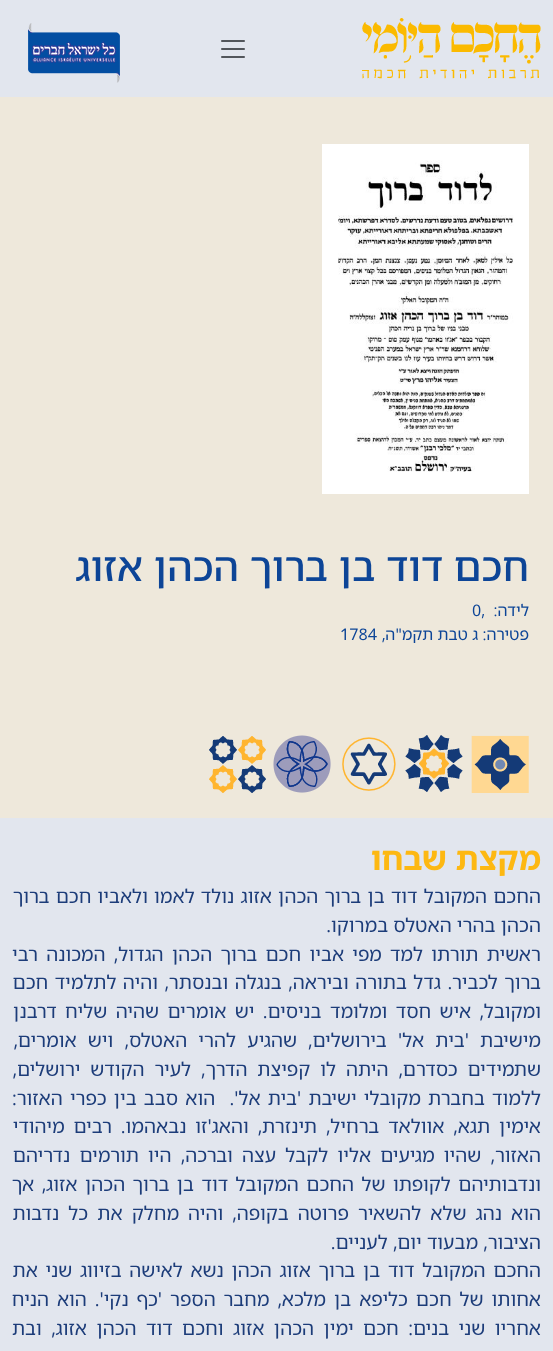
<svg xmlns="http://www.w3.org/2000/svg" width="553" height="1351">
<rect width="100%" height="100%" fill="#e2e6ee"/>
<image x="362" y="18" width="179" height="61" href="media/1.png"/>
<image x="221" y="40" width="24" height="18" href="media/2.png"/>
<image x="28" y="23" width="92" height="60" href="media/3.png"/>
<rect y="97" width="553" height="721" fill="#eee8db"/>
<image x="322" y="144" width="207" height="350" href="media/4.png"/>
<text x="529" y="581" style="font-family:Noto Sans Hebrew;font-size:40px;font-weight:500;direction:rtl;fill:#0d4597">חכם דוד בן ברוך הכהן אזוג</text>
<text x="529" y="616" style="font-family:Noto Sans Hebrew;font-size:16px;direction:rtl;fill:#0d4597">לידה:</text>
<text x="472" y="616" style="font-family:Noto Sans Hebrew;font-size:16px;fill:#0d4597">0,</text>
<text x="529" y="640" style="font-family:Noto Sans Hebrew;font-size:16px;direction:rtl;fill:#0d4597">פטירה: ג טבת תקמ"ה,</text>
<text x="340" y="640" style="font-family:Noto Sans Hebrew;font-size:16px;fill:#0d4597">1784</text>
<image x="209" y="735" width="320" height="58" href="media/5.png"/>
<text x="541" y="870" style="font-family:Noto Sans Hebrew;font-size:32px;font-weight:bold;direction:rtl;fill:#fdb812">מקצת שבחו</text>
<text x="541" y="903" word-spacing="1" style="font-family:Noto Sans Hebrew;font-size:19.2px;direction:rtl;fill:#1c3c79">החכם המקובל דוד בן ברוך הכהן אזוג נולד לאמו ולאביו חכם ברוך</text>
<text x="541" y="932" style="font-family:Noto Sans Hebrew;font-size:19.2px;direction:rtl;fill:#1c3c79">הכהן בהרי האטלס במרוקו.</text>
<text x="541" y="961" word-spacing="3.1" style="font-family:Noto Sans Hebrew;font-size:19.2px;direction:rtl;fill:#1c3c79">ראשית תורתו למד מפי אביו חכם ברוך הכהן הגדול, המכונה רבי</text>
<text x="541" y="989" word-spacing="1.25" style="font-family:Noto Sans Hebrew;font-size:19.2px;direction:rtl;fill:#1c3c79">ברוך לכביר. גדל בתורה וביראה, בנגלה ובנסתר, והיה לתלמיד חכם</text>
<text x="541" y="1018" word-spacing="3.25" style="font-family:Noto Sans Hebrew;font-size:19.2px;direction:rtl;fill:#1c3c79">ומקובל, איש חסד ומלומד בניסים. יש אומרים שהיה שליח דרבנן</text>
<text x="541" y="1047" word-spacing="6" style="font-family:Noto Sans Hebrew;font-size:19.2px;direction:rtl;fill:#1c3c79">מישיבת 'בית אל' בירושלים, שהגיע להרי האטלס, ויש אומרים,</text>
<text x="541" y="1076" word-spacing="4.75" style="font-family:Noto Sans Hebrew;font-size:19.2px;direction:rtl;fill:#1c3c79">שתמידים כסדרם, היתה לו קפיצת הדרך, לעיר הקודש ירושלים,</text>
<text x="541" y="1105" word-spacing="2" style="font-family:Noto Sans Hebrew;font-size:19.2px;direction:rtl;fill:#1c3c79" xml:space="preserve">ללמוד בחברת מקובלי ישיבת 'בית אל'.  הוא סבב בין כפרי האזור:</text>
<text x="541" y="1133" word-spacing="3.75" style="font-family:Noto Sans Hebrew;font-size:19.2px;direction:rtl;fill:#1c3c79">אימין תגא, אוולאד ברחיל, תינזרת, והאג'זו נבאהמו. רבים מיהודי</text>
<text x="541" y="1162" word-spacing="4" style="font-family:Noto Sans Hebrew;font-size:19.2px;direction:rtl;fill:#1c3c79">האזור, שהיו מגיעים אליו לקבל עצה וברכה, היו תורמים נדריהם</text>
<text x="541" y="1191" word-spacing="2.25" style="font-family:Noto Sans Hebrew;font-size:19.2px;direction:rtl;fill:#1c3c79">ונדבותיהם לקופתו של החכם המקובל דוד בן ברוך הכהן אזוג, אך</text>
<text x="541" y="1220" word-spacing="3.9" style="font-family:Noto Sans Hebrew;font-size:19.2px;direction:rtl;fill:#1c3c79">הוא נהג שלא להשאיר פרוטה בקופה, והיה מחלק את כל נדבות</text>
<text x="541" y="1249" style="font-family:Noto Sans Hebrew;font-size:19.2px;direction:rtl;fill:#1c3c79">הציבור, מבעוד יום, לעניים.</text>
<text x="541" y="1277" word-spacing="2.5" style="font-family:Noto Sans Hebrew;font-size:19.2px;direction:rtl;fill:#1c3c79">החכם המקובל דוד בן ברוך אזוג הכהן נשא לאישה בזיווג שני את</text>
<text x="541" y="1306" word-spacing="2.75" style="font-family:Noto Sans Hebrew;font-size:19.2px;direction:rtl;fill:#1c3c79">אחותו של חכם כליפא בן מלכא, מחבר הספר 'כף נקי'. הוא הניח</text>
<text x="541" y="1335" word-spacing="4.25" style="font-family:Noto Sans Hebrew;font-size:19.2px;direction:rtl;fill:#1c3c79">אחריו שני בנים: חכם ימין הכהן אזוג וחכם דוד הכהן אזוג, ובת</text>
</svg>
